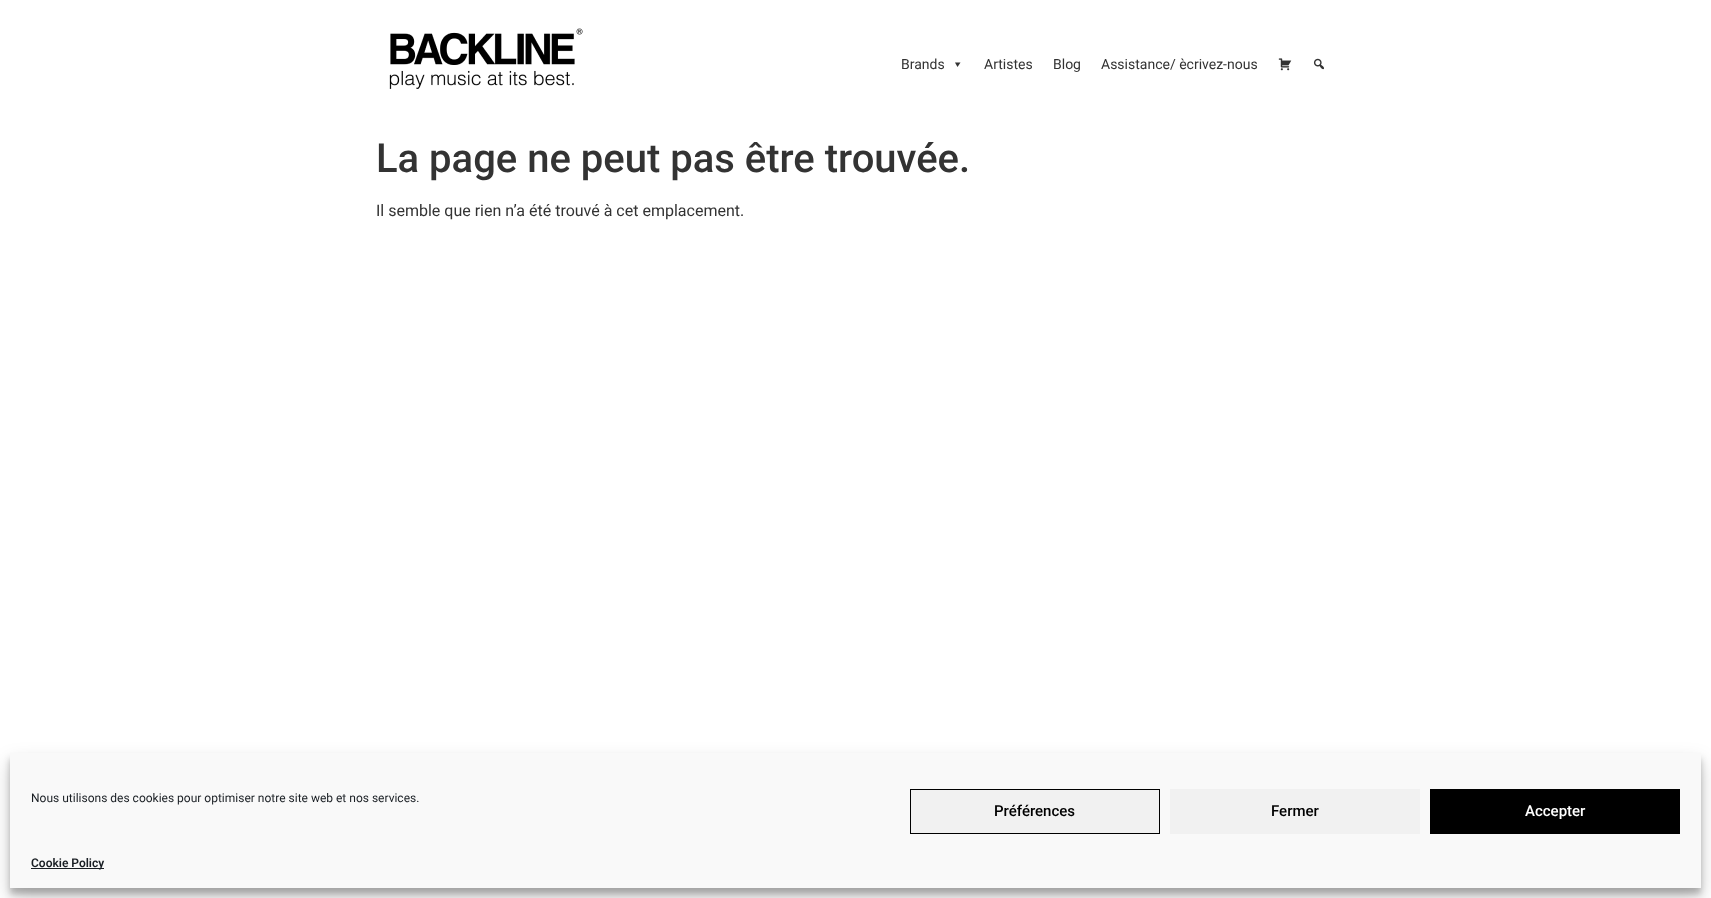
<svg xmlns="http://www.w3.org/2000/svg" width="1711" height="898">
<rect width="100%" height="100%" fill="#fff"/>
<image x="389" y="28" width="194" height="61" href="media/1.png"/>
<text x="901" y="69" style="font-family:Roboto;font-size:14px;fill:#333">Brands</text>
<path d="M960.5 62.5l-3 4.5l-2.5-4.5z" fill="#333"/>
<text x="984" y="69" style="font-family:Roboto;font-size:14px;fill:#333">Artistes</text>
<text x="1053" y="69" style="font-family:Roboto;font-size:14px;fill:#333">Blog</text>
<text x="1101" y="69" style="font-family:Roboto;font-size:14px;fill:#333">Assistance/ ècrivez-nous</text>
<image x="1278" y="58" width="14" height="13" href="media/2.png"/>
<image x="1313" y="58" width="11" height="12" href="media/3.png"/>
<text x="376" y="172" style="font-family:Roboto;font-size:40px;font-weight:500;fill:#333">La page ne peut pas être trouvée.</text>
<text x="376" y="216" style="font-family:Roboto;font-size:16px;fill:#333">Il semble que rien n’a été trouvé à cet emplacement.</text>
<rect x="10" y="759" width="1691" height="135" fill="#0000003b" filter="blur(3px)"/>
<rect x="10" y="763" width="1691" height="135" fill="#00000030" filter="blur(10px)"/>
<rect x="10" y="753" width="1691" height="135" fill="#f9f9f9"/>
<text x="31" y="802" style="font-family:Roboto;font-size:12px;fill:#191e23">Nous utilisons des cookies pour optimiser notre site web et nos services.</text>
<rect x="910.5" y="789.5" width="249" height="44" fill="#f1f1f1" stroke="#000"/>
<text x="994" y="816" style="font-family:Roboto;font-size:15px;font-weight:500;fill:#000">Préférences</text>
<rect x="1170" y="789" width="250" height="45" fill="#f1f1f1"/>
<text x="1271" y="816" style="font-family:Roboto;font-size:15px;font-weight:500;fill:#000">Fermer</text>
<rect x="1430" y="789" width="250" height="45" fill="#000"/>
<text x="1525" y="816" style="font-family:Roboto;font-size:15px;font-weight:500;fill:#fff">Accepter</text>
<rect x="31" y="868" width="73" height="1" fill="#191e23"/>
<text x="31" y="867" style="font-family:Roboto;font-size:12px;font-weight:600;fill:#191e23">Cookie Policy</text>
</svg>
